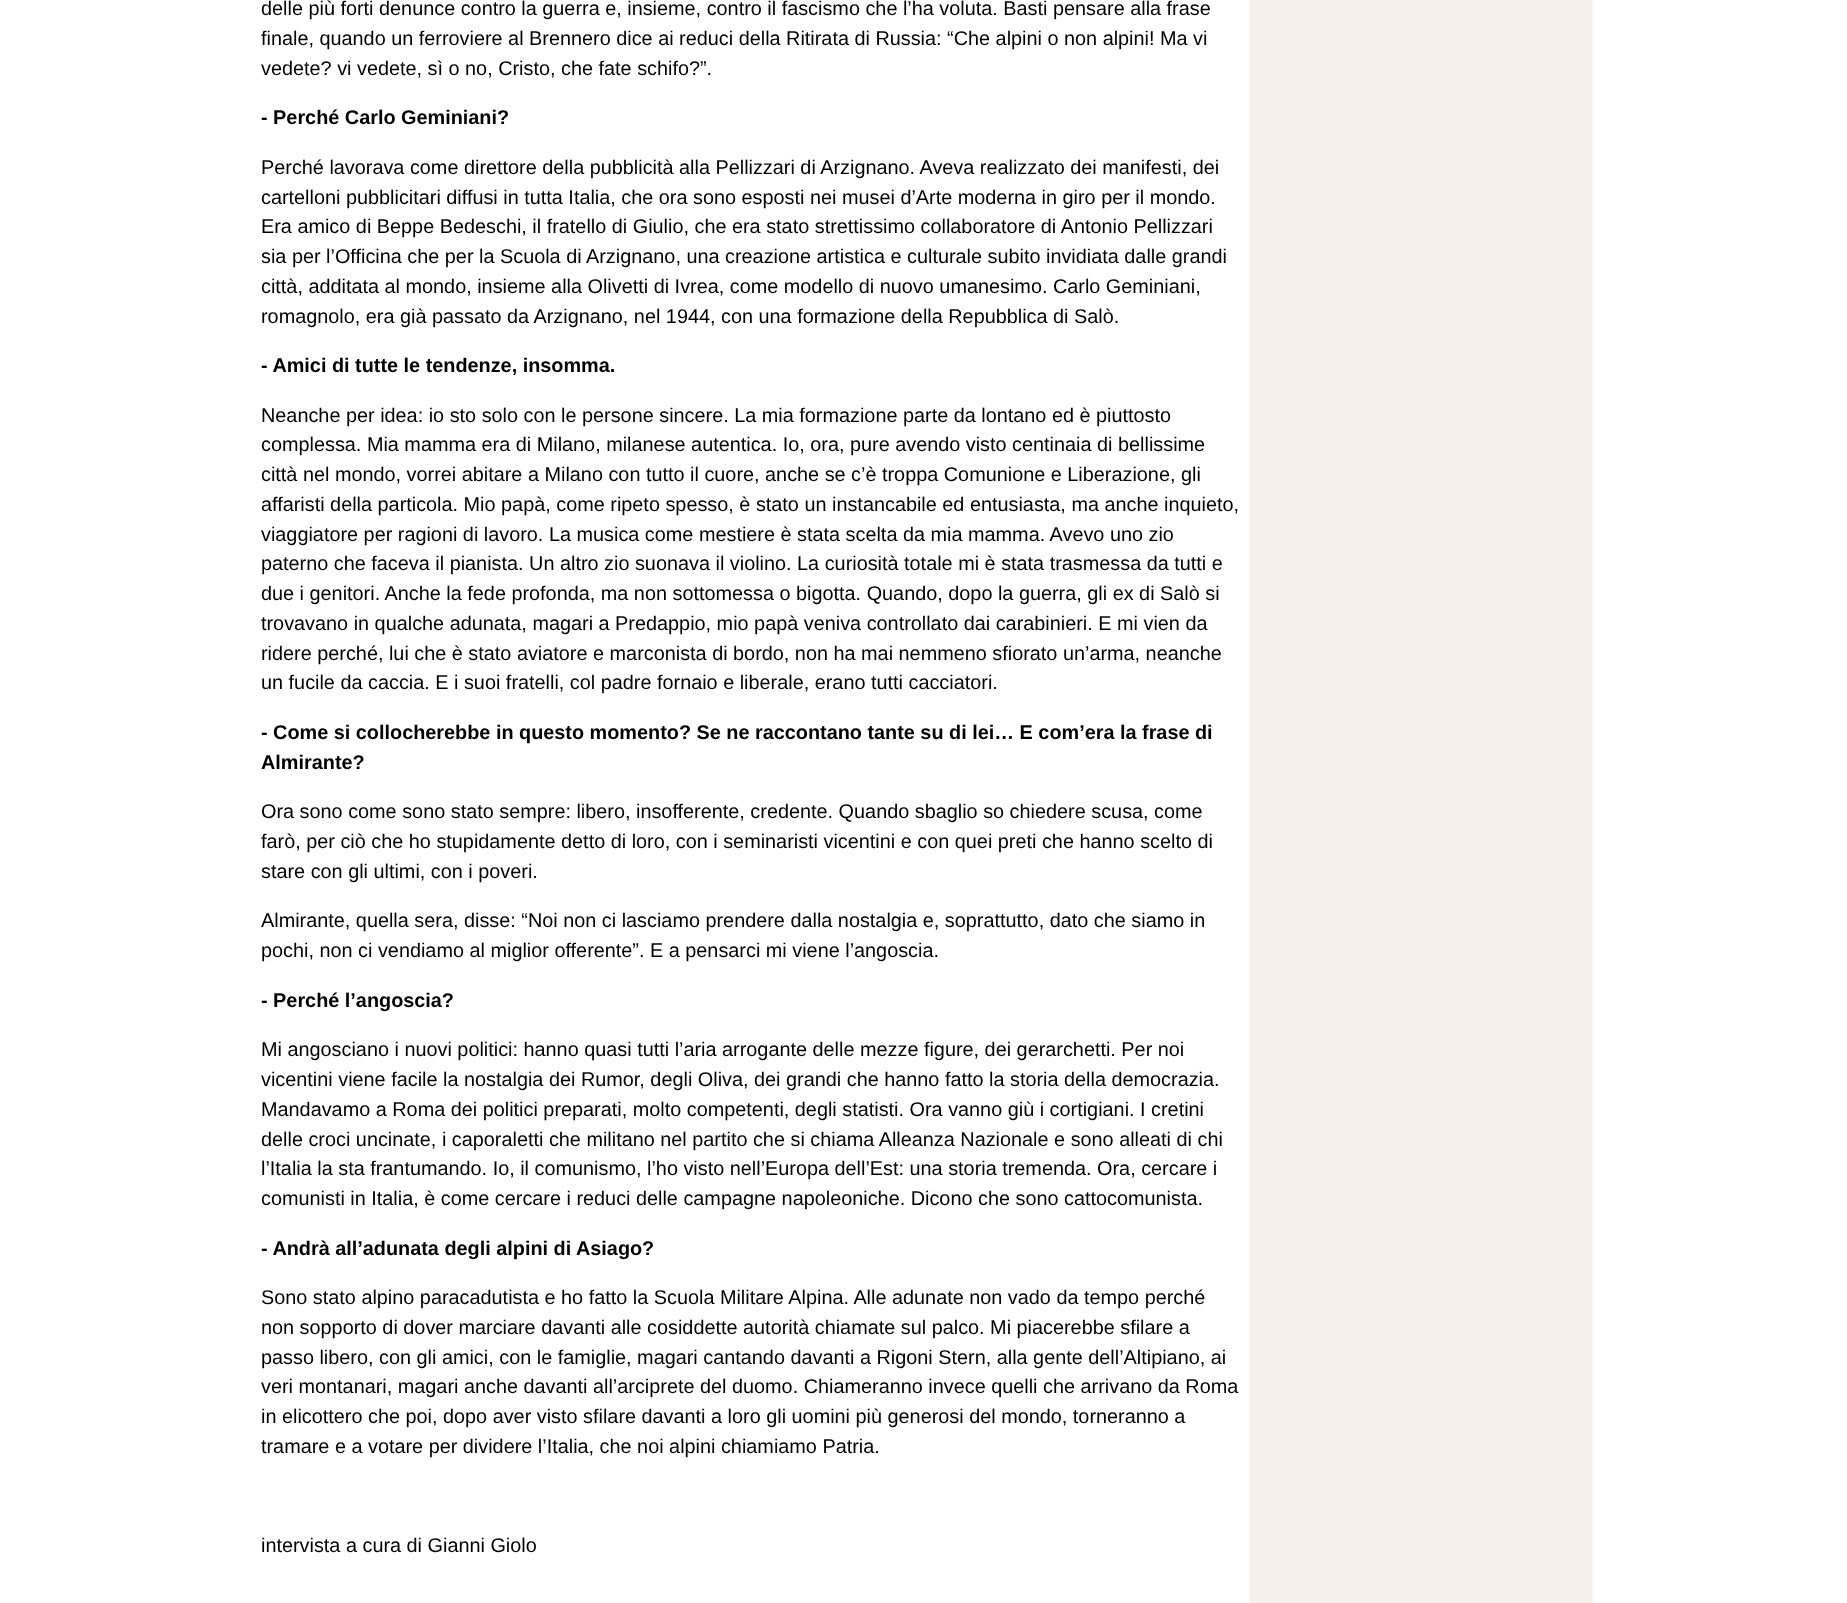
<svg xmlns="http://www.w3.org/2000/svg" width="1847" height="1603">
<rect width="100%" height="100%" fill="#fff"/>
<text x="261" y="15" style="font-family:Liberation Sans;font-size:19.85px;fill:#000">delle più forti denunce contro la guerra e, insieme, contro il fascismo che l’ha voluta. Basti pensare alla frase</text>
<text x="261" y="45" style="font-family:Liberation Sans;font-size:19.85px;fill:#000">finale, quando un ferroviere al Brennero dice ai reduci della Ritirata di Russia: “Che alpini o non alpini! Ma vi</text>
<text x="261" y="75" style="font-family:Liberation Sans;font-size:19.85px;fill:#000">vedete? vi vedete, sì o no, Cristo, che fate schifo?”.</text>
<text x="261" y="124" style="font-family:Liberation Sans;font-size:19.85px;font-weight:bold;fill:#000">- Perché Carlo Geminiani?</text>
<text x="261" y="174" style="font-family:Liberation Sans;font-size:19.85px;fill:#000">Perché lavorava come direttore della pubblicità alla Pellizzari di Arzignano. Aveva realizzato dei manifesti, dei</text>
<text x="261" y="204" style="font-family:Liberation Sans;font-size:19.85px;fill:#000">cartelloni pubblicitari diffusi in tutta Italia, che ora sono esposti nei musei d’Arte moderna in giro per il mondo.</text>
<text x="261" y="233" style="font-family:Liberation Sans;font-size:19.85px;fill:#000">Era amico di Beppe Bedeschi, il fratello di Giulio, che era stato strettissimo collaboratore di Antonio Pellizzari</text>
<text x="261" y="263" style="font-family:Liberation Sans;font-size:19.85px;fill:#000">sia per l’Officina che per la Scuola di Arzignano, una creazione artistica e culturale subito invidiata dalle grandi</text>
<text x="261" y="293" style="font-family:Liberation Sans;font-size:19.85px;fill:#000">città, additata al mondo, insieme alla Olivetti di Ivrea, come modello di nuovo umanesimo. Carlo Geminiani,</text>
<text x="261" y="323" style="font-family:Liberation Sans;font-size:19.85px;fill:#000">romagnolo, era già passato da Arzignano, nel 1944, con una formazione della Repubblica di Salò.</text>
<text x="261" y="372" style="font-family:Liberation Sans;font-size:19.85px;font-weight:bold;fill:#000">- Amici di tutte le tendenze, insomma.</text>
<text x="261" y="422" style="font-family:Liberation Sans;font-size:19.85px;fill:#000">Neanche per idea: io sto solo con le persone sincere. La mia formazione parte da lontano ed è piuttosto</text>
<text x="261" y="451" style="font-family:Liberation Sans;font-size:19.85px;fill:#000">complessa. Mia mamma era di Milano, milanese autentica. Io, ora, pure avendo visto centinaia di bellissime</text>
<text x="261" y="481" style="font-family:Liberation Sans;font-size:19.85px;fill:#000">città nel mondo, vorrei abitare a Milano con tutto il cuore, anche se c’è troppa Comunione e Liberazione, gli</text>
<text x="261" y="511" style="font-family:Liberation Sans;font-size:19.85px;fill:#000">affaristi della particola. Mio papà, come ripeto spesso, è stato un instancabile ed entusiasta, ma anche inquieto,</text>
<text x="261" y="541" style="font-family:Liberation Sans;font-size:19.85px;fill:#000">viaggiatore per ragioni di lavoro. La musica come mestiere è stata scelta da mia mamma. Avevo uno zio</text>
<text x="261" y="570" style="font-family:Liberation Sans;font-size:19.85px;fill:#000">paterno che faceva il pianista. Un altro zio suonava il violino. La curiosità totale mi è stata trasmessa da tutti e</text>
<text x="261" y="600" style="font-family:Liberation Sans;font-size:19.85px;fill:#000">due i genitori. Anche la fede profonda, ma non sottomessa o bigotta. Quando, dopo la guerra, gli ex di Salò si</text>
<text x="261" y="630" style="font-family:Liberation Sans;font-size:19.85px;fill:#000">trovavano in qualche adunata, magari a Predappio, mio papà veniva controllato dai carabinieri. E mi vien da</text>
<text x="261" y="660" style="font-family:Liberation Sans;font-size:19.85px;fill:#000">ridere perché, lui che è stato aviatore e marconista di bordo, non ha mai nemmeno sfiorato un’arma, neanche</text>
<text x="261" y="689" style="font-family:Liberation Sans;font-size:19.85px;fill:#000">un fucile da caccia. E i suoi fratelli, col padre fornaio e liberale, erano tutti cacciatori.</text>
<text x="261" y="739" style="font-family:Liberation Sans;font-size:19.85px;font-weight:bold;fill:#000">- Come si collocherebbe in questo momento? Se ne raccontano tante su di lei… E com’era la frase di</text>
<text x="261" y="769" style="font-family:Liberation Sans;font-size:19.85px;font-weight:bold;fill:#000">Almirante?</text>
<text x="261" y="818" style="font-family:Liberation Sans;font-size:19.85px;fill:#000">Ora sono come sono stato sempre: libero, insofferente, credente. Quando sbaglio so chiedere scusa, come</text>
<text x="261" y="848" style="font-family:Liberation Sans;font-size:19.85px;fill:#000">farò, per ciò che ho stupidamente detto di loro, con i seminaristi vicentini e con quei preti che hanno scelto di</text>
<text x="261" y="878" style="font-family:Liberation Sans;font-size:19.85px;fill:#000">stare con gli ultimi, con i poveri.</text>
<text x="261" y="927" style="font-family:Liberation Sans;font-size:19.85px;fill:#000">Almirante, quella sera, disse: “Noi non ci lasciamo prendere dalla nostalgia e, soprattutto, dato che siamo in</text>
<text x="261" y="957" style="font-family:Liberation Sans;font-size:19.85px;fill:#000">pochi, non ci vendiamo al miglior offerente”. E a pensarci mi viene l’angoscia.</text>
<text x="261" y="1007" style="font-family:Liberation Sans;font-size:19.85px;font-weight:bold;fill:#000">- Perché l’angoscia?</text>
<text x="261" y="1056" style="font-family:Liberation Sans;font-size:19.85px;fill:#000">Mi angosciano i nuovi politici: hanno quasi tutti l’aria arrogante delle mezze figure, dei gerarchetti. Per noi</text>
<text x="261" y="1086" style="font-family:Liberation Sans;font-size:19.85px;fill:#000">vicentini viene facile la nostalgia dei Rumor, degli Oliva, dei grandi che hanno fatto la storia della democrazia.</text>
<text x="261" y="1116" style="font-family:Liberation Sans;font-size:19.85px;fill:#000">Mandavamo a Roma dei politici preparati, molto competenti, degli statisti. Ora vanno giù i cortigiani. I cretini</text>
<text x="261" y="1146" style="font-family:Liberation Sans;font-size:19.85px;fill:#000">delle croci uncinate, i caporaletti che militano nel partito che si chiama Alleanza Nazionale e sono alleati di chi</text>
<text x="261" y="1175" style="font-family:Liberation Sans;font-size:19.85px;fill:#000">l’Italia la sta frantumando. Io, il comunismo, l’ho visto nell’Europa dell’Est: una storia tremenda. Ora, cercare i</text>
<text x="261" y="1205" style="font-family:Liberation Sans;font-size:19.85px;fill:#000">comunisti in Italia, è come cercare i reduci delle campagne napoleoniche. Dicono che sono cattocomunista.</text>
<text x="261" y="1255" style="font-family:Liberation Sans;font-size:19.85px;font-weight:bold;fill:#000">- Andrà all’adunata degli alpini di Asiago?</text>
<text x="261" y="1304" style="font-family:Liberation Sans;font-size:19.85px;fill:#000">Sono stato alpino paracadutista e ho fatto la Scuola Militare Alpina. Alle adunate non vado da tempo perché</text>
<text x="261" y="1334" style="font-family:Liberation Sans;font-size:19.85px;fill:#000">non sopporto di dover marciare davanti alle cosiddette autorità chiamate sul palco. Mi piacerebbe sfilare a</text>
<text x="261" y="1364" style="font-family:Liberation Sans;font-size:19.85px;fill:#000">passo libero, con gli amici, con le famiglie, magari cantando davanti a Rigoni Stern, alla gente dell’Altipiano, ai</text>
<text x="261" y="1393" style="font-family:Liberation Sans;font-size:19.85px;fill:#000">veri montanari, magari anche davanti all’arciprete del duomo. Chiameranno invece quelli che arrivano da Roma</text>
<text x="261" y="1423" style="font-family:Liberation Sans;font-size:19.85px;fill:#000">in elicottero che poi, dopo aver visto sfilare davanti a loro gli uomini più generosi del mondo, torneranno a</text>
<text x="261" y="1453" style="font-family:Liberation Sans;font-size:19.85px;fill:#000">tramare e a votare per dividere l’Italia, che noi alpini chiamiamo Patria.</text>
<text x="261" y="1552" style="font-family:Liberation Sans;font-size:19.85px;fill:#000">intervista a cura di Gianni Giolo</text>
<image x="1249" y="0" width="345" height="1603" href="media/1.png"/>
</svg>
